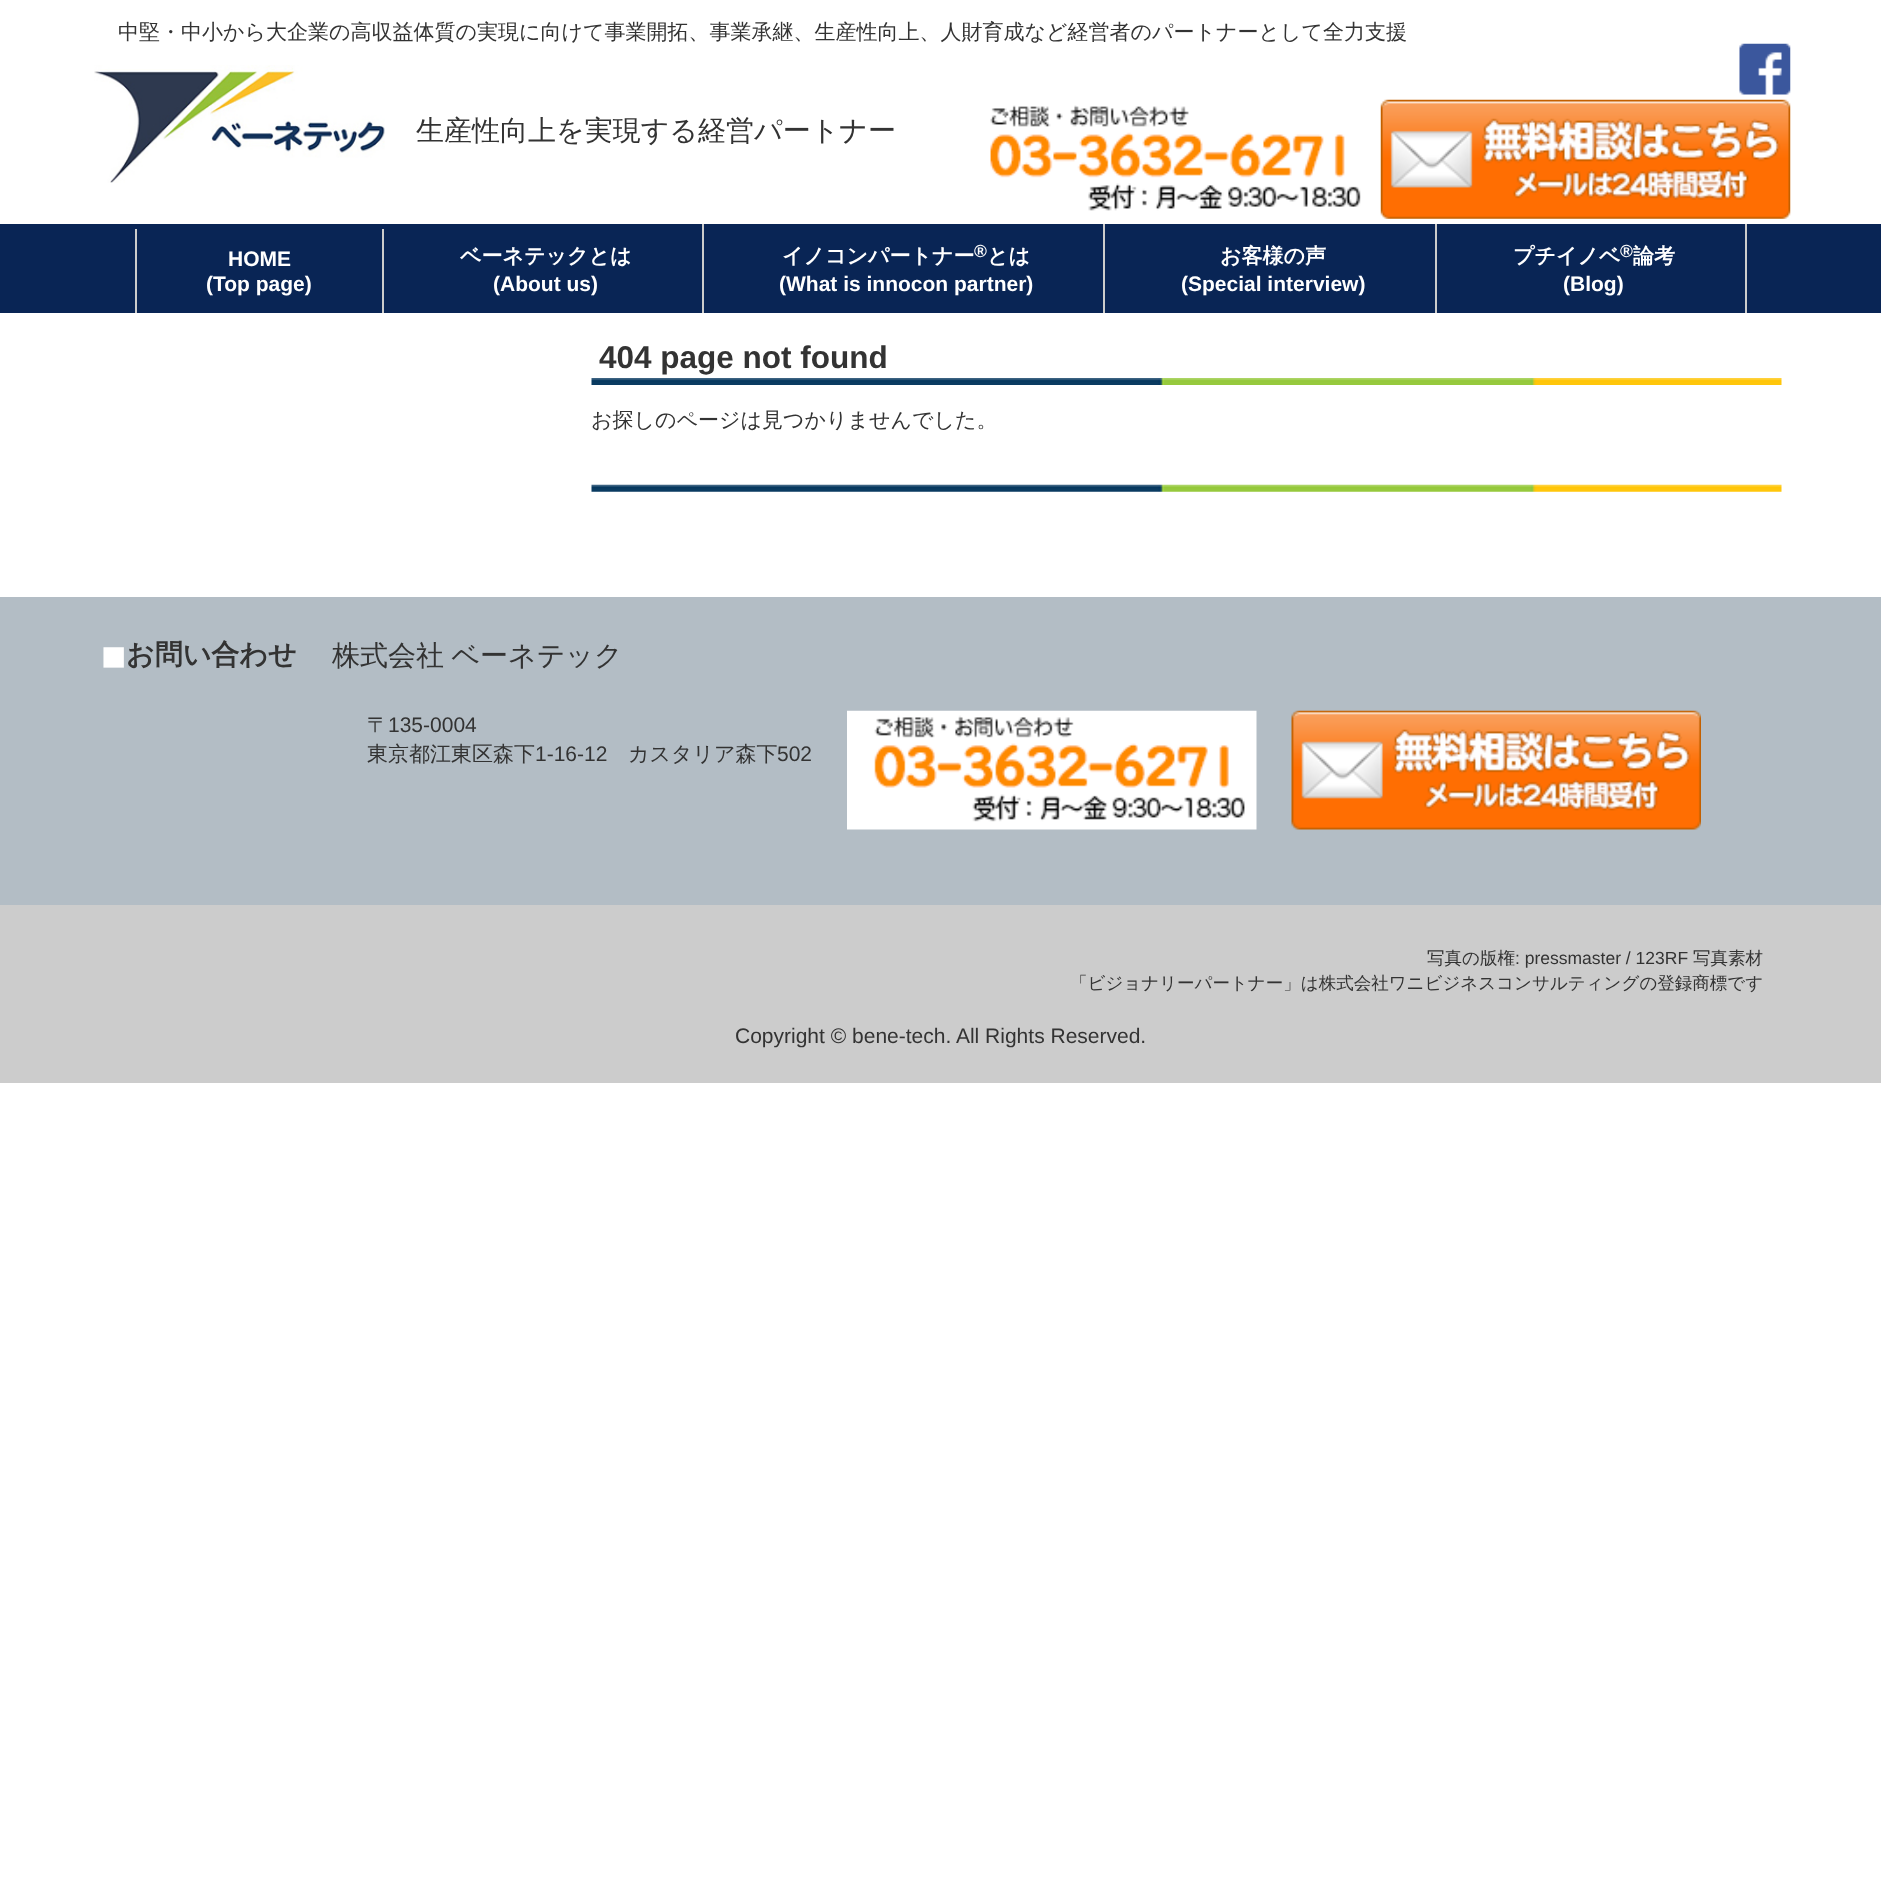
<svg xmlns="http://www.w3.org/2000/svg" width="1881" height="1893">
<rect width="100%" height="100%" fill="#fff"/>
<text x="118" y="39" style="font-family:WenQuanYi Zen Hei;font-size:21px;font-weight:500;fill:#333">中堅・中小から大企業の高収益体質の実現に向けて事業開拓、事業承継、生産性向上、人財育成など経営者のパートナーとして全力支援</text>
<image x="94" y="65" width="291" height="118" href="media/1.png"/>
<text x="416" y="140" style="font-family:WenQuanYi Zen Hei;font-size:28px;font-weight:500;fill:#333">生産性向上を実現する経営パートナー</text>
<image x="1739" y="43" width="52" height="52" href="media/2.png"/>
<image x="990" y="105" width="371" height="106" href="media/3.png"/>
<image x="1380" y="99" width="411" height="120" href="media/4.png"/>
<rect y="224" width="1881" height="89" fill="#092555"/>
<rect x="382" y="229" width="2" height="84" fill="#ccc"/>
<rect x="135" y="229" width="2" height="84" fill="#ccc"/>
<text x="228" y="266" style="font-family:Liberation Sans;font-size:21px;font-weight:bold;fill:#fff">HOME</text>
<text x="206" y="291" style="font-family:Liberation Sans;font-size:21px;font-weight:bold;fill:#fff">(Top page)</text>
<rect x="702" y="224" width="2" height="89" fill="#ccc"/>
<text x="460" y="263" style="font-family:WenQuanYi Zen Hei;font-size:21px;font-weight:bold;fill:#fff">ベーネテックとは</text>
<text x="493" y="291" style="font-family:Liberation Sans;font-size:21px;font-weight:bold;fill:#fff">(About us)</text>
<rect x="1103" y="224" width="2" height="89" fill="#ccc"/>
<text x="782" y="263" style="font-family:WenQuanYi Zen Hei;font-size:21px;font-weight:bold;fill:#fff">イノコンパートナー</text>
<text x="974" y="257" style="font-family:Liberation Sans;font-size:17.5px;font-weight:bold;fill:#fff">®</text>
<text x="987" y="263" style="font-family:WenQuanYi Zen Hei;font-size:21px;font-weight:bold;fill:#fff">とは</text>
<text x="779" y="291" style="font-family:Liberation Sans;font-size:21px;font-weight:bold;fill:#fff">(What is innocon partner)</text>
<rect x="1435" y="224" width="2" height="89" fill="#ccc"/>
<text x="1220" y="263" style="font-family:WenQuanYi Zen Hei;font-size:21px;font-weight:bold;fill:#fff">お客様の声</text>
<text x="1181" y="291" style="font-family:Liberation Sans;font-size:21px;font-weight:bold;fill:#fff">(Special interview)</text>
<rect x="1745" y="224" width="2" height="89" fill="#ccc"/>
<text x="1513" y="263" style="font-family:WenQuanYi Zen Hei;font-size:21px;font-weight:bold;fill:#fff">プチイノベ</text>
<text x="1620" y="257" style="font-family:Liberation Sans;font-size:17.5px;font-weight:bold;fill:#fff">®</text>
<text x="1633" y="263" style="font-family:WenQuanYi Zen Hei;font-size:21px;font-weight:bold;fill:#fff">論考</text>
<text x="1563" y="291" style="font-family:Liberation Sans;font-size:21px;font-weight:bold;fill:#fff">(Blog)</text>
<image x="591" y="484" width="1191" height="8" href="media/5.png"/>
<image x="591" y="378" width="1191" height="7" href="media/6.png"/>
<text x="599" y="368" style="font-family:Liberation Sans;font-size:31.5px;font-weight:bold;fill:#333">404 page not found</text>
<text x="591" y="427" style="font-family:WenQuanYi Zen Hei;font-size:21px;font-weight:500;fill:#333">お探しのページは見つかりませんでした。</text>
<rect y="597" width="1881" height="308" fill="#b3bdc5"/>
<text x="101" y="670" style="font-family:Liberation Sans;font-size:42px;font-weight:bold;fill:#fff">■</text>
<text x="126" y="664" style="font-family:WenQuanYi Zen Hei;font-size:28px;font-weight:bold;fill:#333">お問い合わせ</text>
<text x="332" y="665" word-spacing="-1" style="font-family:WenQuanYi Zen Hei;font-size:28px;font-weight:500;fill:#333">株式会社 ベーネテック</text>
<text x="367" y="732" style="font-family:WenQuanYi Zen Hei;font-size:21px;font-weight:500;fill:#333">〒</text>
<text x="388" y="732" style="font-family:Liberation Sans;font-size:21px;fill:#333">135-0004</text>
<text x="367" y="761" style="font-family:WenQuanYi Zen Hei;font-size:21px;font-weight:500;fill:#333">東京都江東区森下</text>
<text x="535" y="761" style="font-family:Liberation Sans;font-size:21px;fill:#333">1-16-12</text>
<text x="628" y="761" style="font-family:WenQuanYi Zen Hei;font-size:21px;font-weight:500;fill:#333">カスタリア森下</text>
<text x="777" y="761" style="font-family:Liberation Sans;font-size:21px;fill:#333">502</text>
<image x="847" y="710" width="410" height="120" href="media/7.png"/>
<image x="1291" y="710" width="410" height="120" href="media/8.png"/>
<rect y="905" width="1881" height="178" fill="#ccc"/>
<text x="1427" y="964" style="font-family:WenQuanYi Zen Hei;font-size:17.5px;font-weight:500;fill:#333">写真の版権</text>
<text x="1515" y="964" style="font-family:Liberation Sans;font-size:17.5px;fill:#333">: pressmaster / 123RF</text>
<text x="1693" y="964" style="font-family:WenQuanYi Zen Hei;font-size:17.5px;font-weight:500;fill:#333">写真素材</text>
<text x="1070" y="989" style="font-family:WenQuanYi Zen Hei;font-size:17.5px;font-weight:500;fill:#333">「ビジョナリーパートナー」は株式会社ワニビジネスコンサルティングの登録商標です</text>
<text x="735" y="1043" style="font-family:Liberation Sans;font-size:21px;fill:#333">Copyright © bene-tech. All Rights Reserved.</text>
</svg>
